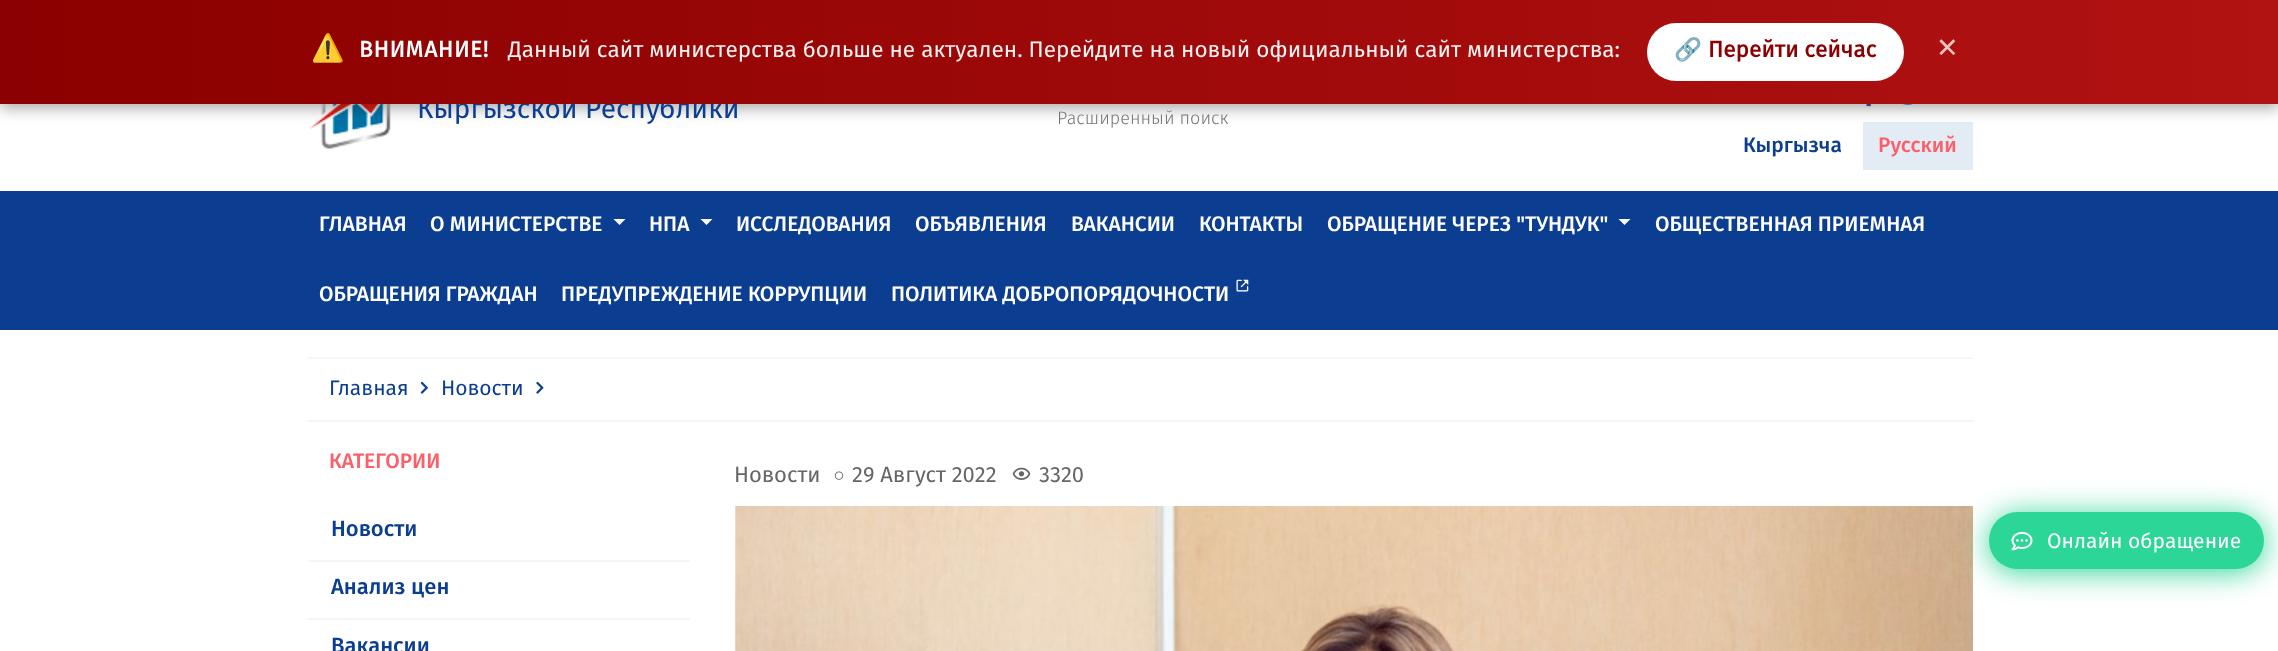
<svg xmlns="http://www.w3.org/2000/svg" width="2278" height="651">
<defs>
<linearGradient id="g1" gradientUnits="userSpaceOnUse" x1="0" y1="52" x2="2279" y2="52"><stop offset="0" stop-color="#8b0000"/><stop offset="1" stop-color="#b11212"/></linearGradient>
</defs>
<rect width="100%" height="100%" fill="#fff"/>
<image x="309" y="104" width="83" height="45" href="media/1.png"/>
<image x="1866" y="104" width="5" height="3" href="media/2.png"/>
<image x="1903" y="104" width="10" height="1" href="media/3.png"/>
<rect x="1863" y="122" width="110" height="48" fill="#e3ecf5"/>
<rect y="5" width="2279" height="103" fill="#00000059" filter="blur(7.5px)"/>
<text x="417" y="118" style="font-family:Fira Sans;font-size:28px;fill:#0b3d91">Кыргызской Республики</text>
<rect width="2278" height="104" fill="url(#g1)"/>
<text x="311" y="57" style="font-family:Noto Color Emoji;font-size:27px;fill:#fff">⚠️</text>
<text x="359" y="57" style="font-family:Fira Sans;font-size:22.5px;font-weight:bold;letter-spacing:0.75px;fill:#fff">ВНИМАНИЕ!</text>
<text x="508" y="57" style="font-family:Fira Sans;font-size:22.5px;fill:#faf3f3">Данный сайт министерства больше не актуален. Перейдите на новый официальный сайт министерства:</text>
<rect x="1647" y="23" width="257" height="58" rx="29" fill="#fff"/>
<text x="1674" y="57" style="font-family:Noto Color Emoji;font-size:22.5px;font-weight:bold;fill:#8b0000">🔗</text>
<text x="1708" y="57" style="font-family:Fira Sans;font-size:22.5px;font-weight:bold;fill:#8b0000">Перейти сейчас</text>
<text x="1936" y="57" style="font-family:DejaVu Sans;font-size:27px;fill:#eac3c3">✕</text>
<text x="1057" y="124" style="font-family:Fira Sans;font-size:18px;font-weight:300;fill:#777">Расширенный поиск</text>
<text x="1743" y="152" style="font-family:Fira Sans;font-size:21px;font-weight:500;fill:#0b3d91">Кыргызча</text>
<text x="1878" y="152" style="font-family:Fira Sans;font-size:21px;font-weight:500;fill:#fb5f68">Русский</text>
<rect y="191" width="2278" height="139" fill="#0b3d91"/>
<text x="319" y="231" style="font-family:Fira Sans;font-size:21px;font-weight:500;fill:#fff">ГЛАВНАЯ</text>
<text x="430" y="231" style="font-family:Fira Sans;font-size:21px;font-weight:500;fill:#fff">О МИНИСТЕРСТВЕ</text>
<path d="M613.5 219h12l-6 6z" fill="#fff"/>
<text x="649" y="231" style="font-family:Fira Sans;font-size:21px;font-weight:500;fill:#fff">НПА</text>
<path d="M700.5 219h12l-6 6z" fill="#fff"/>
<text x="736" y="231" style="font-family:Fira Sans;font-size:21px;font-weight:500;fill:#fff">ИССЛЕДОВАНИЯ</text>
<text x="915" y="231" style="font-family:Fira Sans;font-size:21px;font-weight:500;fill:#fff">ОБЪЯВЛЕНИЯ</text>
<text x="1071" y="231" style="font-family:Fira Sans;font-size:21px;font-weight:500;fill:#fff">ВАКАНСИИ</text>
<text x="1199" y="231" style="font-family:Fira Sans;font-size:21px;font-weight:500;fill:#fff">КОНТАКТЫ</text>
<text x="1327" y="231" style="font-family:Fira Sans;font-size:21px;font-weight:500;fill:#fff">ОБРАЩЕНИЕ ЧЕРЕЗ "ТУНДУК"</text>
<path d="M1618.5 219h12l-6 6z" fill="#fff"/>
<text x="1655" y="231" style="font-family:Fira Sans;font-size:21px;font-weight:500;fill:#fff">ОБЩЕСТВЕННАЯ ПРИЕМНАЯ</text>
<text x="319" y="301" style="font-family:Fira Sans;font-size:21px;font-weight:500;fill:#fff">ОБРАЩЕНИЯ ГРАЖДАН</text>
<text x="561" y="301" style="font-family:Fira Sans;font-size:21px;font-weight:500;fill:#fff">ПРЕДУПРЕЖДЕНИЕ КОРРУПЦИИ</text>
<text x="891" y="301" style="font-family:Fira Sans;font-size:21px;font-weight:500;fill:#fff">ПОЛИТИКА ДОБРОПОРЯДОЧНОСТИ</text>
<image x="1236" y="279" width="13" height="13" href="media/4.png"/>
<rect x="308" y="357" width="1665" height="2" fill="#f2f6fa"/>
<rect x="308" y="420" width="1665" height="2" fill="#f2f6fa"/>
<text x="329" y="395" style="font-family:Fira Sans;font-size:21px;fill:#0b3d91">Главная</text>
<image x="420" y="381" width="8" height="13" href="media/5.png"/>
<text x="441" y="395" style="font-family:Fira Sans;font-size:21px;fill:#0b3d91">Новости</text>
<image x="536" y="381" width="8" height="13" href="media/6.png"/>
<text x="329" y="468" style="font-family:Fira Sans;font-size:21px;font-weight:500;fill:#fb5f68">КАТЕГОРИИ</text>
<rect x="308" y="560" width="382" height="2" fill="#f4f5f7"/>
<text x="331" y="536" style="font-family:Fira Sans;font-size:22px;font-weight:500;fill:#0b3d91">Новости</text>
<rect x="308" y="618" width="382" height="2" fill="#f4f5f7"/>
<text x="331" y="594" style="font-family:Fira Sans;font-size:22px;font-weight:500;fill:#0b3d91">Анализ цен</text>
<text x="331" y="653" style="font-family:Fira Sans;font-size:22px;font-weight:500;fill:#0b3d91">Вакансии</text>
<text x="734" y="482" style="font-family:Fira Sans;font-size:22px;fill:#666">Новости</text>
<image x="834" y="471" width="10" height="9" href="media/7.png"/>
<text x="852" y="482" style="font-family:Fira Sans;font-size:22px;fill:#666">29 Август 2022</text>
<image x="1012" y="467" width="19" height="13" href="media/8.png"/>
<text x="1039" y="482" style="font-family:Fira Sans;font-size:22px;fill:#666">3320</text>
<image x="735" y="506" width="1238" height="145" href="media/9.png"/>
<rect x="1989" y="515" width="275" height="57" rx="28.5" fill="#2cd696" filter="blur(15px)"/>
<rect x="1989" y="512" width="275" height="57" rx="28.5" fill="#2cd696"/>
<image x="2011" y="531" width="22" height="20" href="media/10.png"/>
<text x="2047" y="548" style="font-family:Fira Sans;font-size:21px;fill:#fff">Онлайн обращение</text>
</svg>
